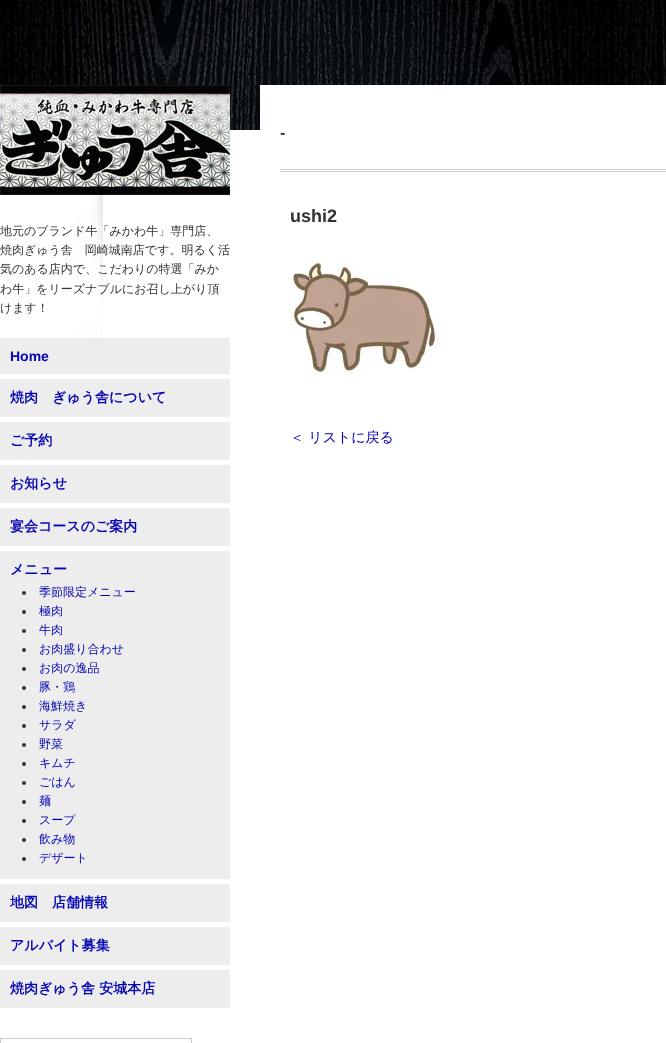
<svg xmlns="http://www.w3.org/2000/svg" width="666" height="1043">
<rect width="100%" height="100%" fill="#fff"/>
<image x="0" y="0" width="666" height="130" href="media/1.png"/>
<image x="73" y="195" width="30" height="143" href="media/2.png"/>
<image x="0" y="85" width="230" height="110" href="media/3.png"/>
<text x="0" y="235" style="font-family:WenQuanYi Zen Hei;font-size:12px;font-weight:500;fill:#333">地元のブランド牛「みかわ牛」専門店、</text>
<text x="0" y="254" style="font-family:WenQuanYi Zen Hei;font-size:12px;font-weight:500;fill:#333">焼肉ぎゅう舎　岡崎城南店です。明るく活</text>
<text x="0" y="273" style="font-family:WenQuanYi Zen Hei;font-size:12px;font-weight:500;fill:#333">気のある店内で、こだわりの特選「みか</text>
<text x="0" y="293" style="font-family:WenQuanYi Zen Hei;font-size:12px;font-weight:500;fill:#333">わ牛」をリーズナブルにお召し上がり頂</text>
<text x="0" y="312" style="font-family:WenQuanYi Zen Hei;font-size:12px;font-weight:500;fill:#333">けます！</text>
<rect y="338" width="230" height="36" fill="#ededed"/>
<text x="10" y="361" style="font-family:Liberation Sans;font-size:14px;font-weight:bold;fill:#0404b4">Home</text>
<rect y="379" width="230" height="38" fill="#ededed"/>
<text x="10" y="402" style="font-family:WenQuanYi Zen Hei;font-size:14px;font-weight:bold;fill:#0404b4">焼肉　ぎゅう舎について</text>
<rect y="422" width="230" height="38" fill="#ededed"/>
<text x="10" y="445" style="font-family:WenQuanYi Zen Hei;font-size:14px;font-weight:bold;fill:#0404b4">ご予約</text>
<rect y="465" width="230" height="38" fill="#ededed"/>
<text x="10" y="488" style="font-family:WenQuanYi Zen Hei;font-size:14px;font-weight:bold;fill:#0404b4">お知らせ</text>
<rect y="508" width="230" height="38" fill="#ededed"/>
<text x="10" y="531" style="font-family:WenQuanYi Zen Hei;font-size:14px;font-weight:bold;fill:#0404b4">宴会コースのご案内</text>
<rect y="551" width="230" height="328" fill="#ededed"/>
<text x="10" y="574" style="font-family:WenQuanYi Zen Hei;font-size:14px;font-weight:bold;fill:#0404b4">メニュー</text>
<circle cx="24" cy="593" r="2" fill="#333"/>
<text x="39" y="596" style="font-family:WenQuanYi Zen Hei;font-size:12px;font-weight:500;fill:#0404b4">季節限定メニュー</text>
<circle cx="24" cy="612" r="2" fill="#333"/>
<text x="39" y="615" style="font-family:WenQuanYi Zen Hei;font-size:12px;font-weight:500;fill:#0404b4">極肉</text>
<circle cx="24" cy="631" r="2" fill="#333"/>
<text x="39" y="634" style="font-family:WenQuanYi Zen Hei;font-size:12px;font-weight:500;fill:#0404b4">牛肉</text>
<circle cx="24" cy="650" r="2" fill="#333"/>
<text x="39" y="653" style="font-family:WenQuanYi Zen Hei;font-size:12px;font-weight:500;fill:#0404b4">お肉盛り合わせ</text>
<circle cx="24" cy="669" r="2" fill="#333"/>
<text x="39" y="672" style="font-family:WenQuanYi Zen Hei;font-size:12px;font-weight:500;fill:#0404b4">お肉の逸品</text>
<circle cx="24" cy="688" r="2" fill="#333"/>
<text x="39" y="691" style="font-family:WenQuanYi Zen Hei;font-size:12px;font-weight:500;fill:#0404b4">豚・鶏</text>
<circle cx="24" cy="707" r="2" fill="#333"/>
<text x="39" y="710" style="font-family:WenQuanYi Zen Hei;font-size:12px;font-weight:500;fill:#0404b4">海鮮焼き</text>
<circle cx="24" cy="726" r="2" fill="#333"/>
<text x="39" y="729" style="font-family:WenQuanYi Zen Hei;font-size:12px;font-weight:500;fill:#0404b4">サラダ</text>
<circle cx="24" cy="745" r="2" fill="#333"/>
<text x="39" y="748" style="font-family:WenQuanYi Zen Hei;font-size:12px;font-weight:500;fill:#0404b4">野菜</text>
<circle cx="24" cy="764" r="2" fill="#333"/>
<text x="39" y="767" style="font-family:WenQuanYi Zen Hei;font-size:12px;font-weight:500;fill:#0404b4">キムチ</text>
<circle cx="24" cy="783" r="2" fill="#333"/>
<text x="39" y="786" style="font-family:WenQuanYi Zen Hei;font-size:12px;font-weight:500;fill:#0404b4">ごはん</text>
<circle cx="24" cy="802" r="2" fill="#333"/>
<text x="39" y="805" style="font-family:WenQuanYi Zen Hei;font-size:12px;font-weight:500;fill:#0404b4">麺</text>
<circle cx="24" cy="821" r="2" fill="#333"/>
<text x="39" y="824" style="font-family:WenQuanYi Zen Hei;font-size:12px;font-weight:500;fill:#0404b4">スープ</text>
<circle cx="24" cy="840" r="2" fill="#333"/>
<text x="39" y="843" style="font-family:WenQuanYi Zen Hei;font-size:12px;font-weight:500;fill:#0404b4">飲み物</text>
<circle cx="24" cy="859" r="2" fill="#333"/>
<text x="39" y="862" style="font-family:WenQuanYi Zen Hei;font-size:12px;font-weight:500;fill:#0404b4">デザート</text>
<rect y="884" width="230" height="38" fill="#ededed"/>
<text x="10" y="907" style="font-family:WenQuanYi Zen Hei;font-size:14px;font-weight:bold;fill:#0404b4">地図　店舗情報</text>
<rect y="927" width="230" height="38" fill="#ededed"/>
<text x="10" y="950" style="font-family:WenQuanYi Zen Hei;font-size:14px;font-weight:bold;fill:#0404b4">アルバイト募集</text>
<rect y="970" width="230" height="38" fill="#ededed"/>
<text x="10" y="993" style="font-family:WenQuanYi Zen Hei;font-size:14px;font-weight:bold;fill:#0404b4">焼肉ぎゅう舎 安城本店</text>
<rect x="0.5" y="1038.5" width="191" height="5" fill="none" stroke="#ccc"/>
<rect x="260" y="85" width="406" height="45" fill="#fff"/>
<rect x="280" y="169" width="386" height="1" fill="#ccc"/>
<rect x="280" y="171" width="386" height="1" fill="#ccc"/>
<text x="280" y="138" style="font-family:Liberation Sans;font-size:16px;font-weight:bold;fill:#333">-</text>
<text x="290" y="222" style="font-family:Liberation Sans;font-size:18px;font-weight:bold;fill:#333">ushi2</text>
<image x="290" y="261" width="150" height="116" href="media/4.png"/>
<text x="290" y="442" style="font-family:WenQuanYi Zen Hei;font-size:14px;font-weight:500;fill:#0404b4">＜ リストに戻る</text>
</svg>
